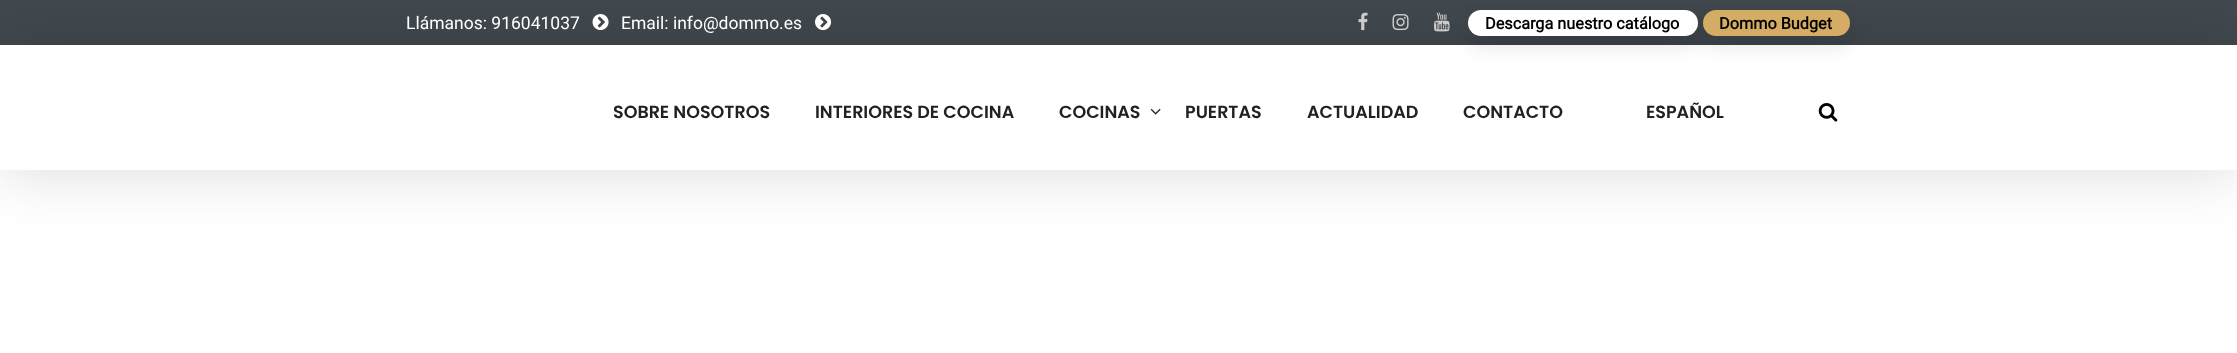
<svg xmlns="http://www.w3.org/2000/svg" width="2237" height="353">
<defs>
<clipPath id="clip1"><path d="M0 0h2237v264h-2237zm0 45h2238v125h-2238z" clip-rule="evenodd"/></clipPath>
</defs>
<rect width="100%" height="100%" fill="#fff"/>
<rect width="2237" height="45" fill="#41484e"/>
<g clip-path="url(#clip1)">
<rect y="45" width="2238" height="125" fill="#00000026" filter="blur(31px)"/>
</g>
<text x="406" y="29" style="font-family:Roboto;font-size:17.5px;fill:#fff">Llámanos: 916041037</text>
<image x="592" y="14" width="17" height="17" href="media/1.png"/>
<text x="621" y="29" style="font-family:Roboto;font-size:17.5px;fill:#fff">Email: info@dommo.es</text>
<image x="815" y="14" width="17" height="17" href="media/2.png"/>
<image x="1358" y="12" width="10" height="19" href="media/3.png"/>
<image x="1392" y="14" width="17" height="17" href="media/4.png"/>
<image x="1434" y="12" width="16" height="20" href="media/5.png"/>
<rect x="1468" y="20" width="230" height="26" rx="13" fill="#0000001a" filter="blur(9.5px)"/>
<rect x="1468" y="10" width="230" height="26" rx="13" fill="#fff"/>
<text x="1485" y="29" style="font-family:Roboto;font-size:16.25px;font-weight:bold;fill:#000">Descarga nuestro catálogo</text>
<rect x="1703" y="20" width="147" height="26" rx="13" fill="#0000001a" filter="blur(9.5px)"/>
<rect x="1703" y="10" width="147" height="26" rx="13" fill="#d5ac63"/>
<text x="1719" y="29" style="font-family:Roboto;font-size:16.25px;font-weight:bold;fill:#000">Dommo Budget</text>
<text x="613" y="118" style="font-family:Poppins;font-size:17.5px;font-weight:600;fill:#212121">SOBRE NOSOTROS</text>
<text x="815" y="118" style="font-family:Poppins;font-size:17.5px;font-weight:600;fill:#212121">INTERIORES DE COCINA</text>
<text x="1059" y="118" style="font-family:Poppins;font-size:17.5px;font-weight:600;fill:#212121">COCINAS</text>
<image x="1150" y="108" width="11" height="7" href="media/6.png"/>
<text x="1185" y="118" style="font-family:Poppins;font-size:17.5px;font-weight:600;fill:#212121">PUERTAS</text>
<text x="1307" y="118" style="font-family:Poppins;font-size:17.5px;font-weight:600;fill:#212121">ACTUALIDAD</text>
<text x="1463" y="118" style="font-family:Poppins;font-size:17.5px;font-weight:600;fill:#212121">CONTACTO</text>
<text x="1646" y="118" style="font-family:Poppins;font-size:17.5px;font-weight:600;fill:#212121">ESPAÑOL</text>
<image x="1818" y="103" width="20" height="19" href="media/7.png"/>
</svg>
